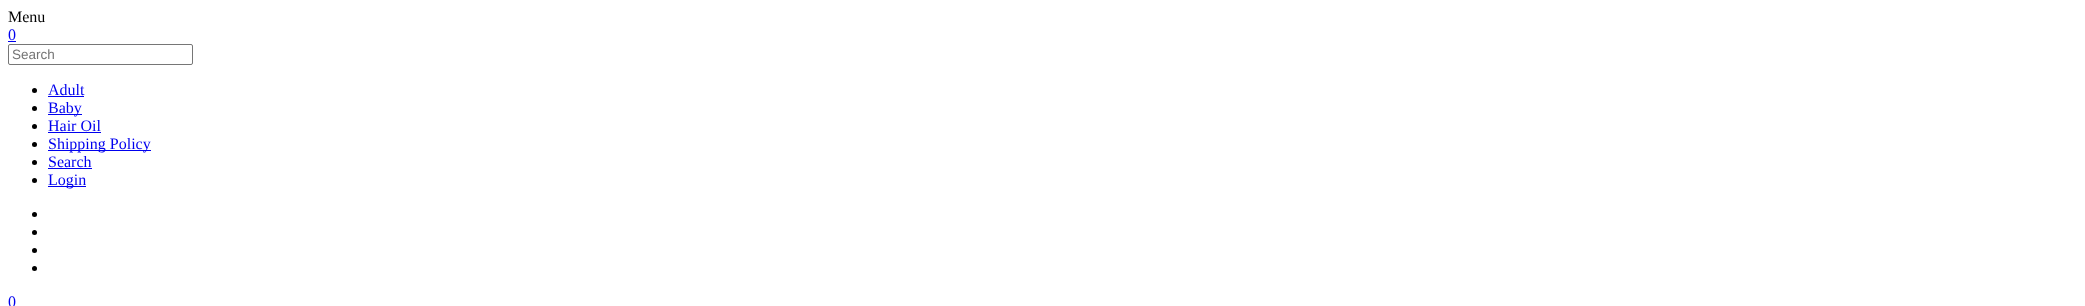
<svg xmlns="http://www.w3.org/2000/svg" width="2085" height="306">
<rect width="100%" height="100%" fill="#fff"/>
<text x="8" y="22" style="font-family:Liberation Serif;font-size:16px;fill:#000">Menu</text>
<text x="8" y="40" style="font-family:Liberation Serif;font-size:16px;fill:#00e">0</text>
<rect x="8" y="41" width="8" height="1" fill="#00e"/>
<rect x="8.5" y="44.5" width="184" height="20" rx="1.5" fill="none" stroke="#767676"/>
<text x="12" y="59" style="font-family:Liberation Sans;font-size:13.5px;fill:#757575">Search</text>
<circle cx="34.5" cy="90.5" r="2.5" fill="#000"/>
<text x="48" y="95" style="font-family:Liberation Serif;font-size:16px;fill:#00e">Adult</text>
<rect x="48" y="96" width="36" height="1" fill="#00e"/>
<circle cx="34.5" cy="108.5" r="2.5" fill="#000"/>
<rect x="48" y="114" width="34" height="1" fill="#00e"/>
<text x="48" y="113" style="font-family:Liberation Serif;font-size:16px;fill:#00e">Baby</text>
<circle cx="34.5" cy="126.5" r="2.5" fill="#000"/>
<text x="48" y="131" style="font-family:Liberation Serif;font-size:16px;fill:#00e">Hair Oil</text>
<rect x="48" y="132" width="53" height="1" fill="#00e"/>
<circle cx="34.5" cy="144.5" r="2.5" fill="#000"/>
<rect x="48" y="150" width="103" height="1" fill="#00e"/>
<text x="48" y="149" style="font-family:Liberation Serif;font-size:16px;fill:#00e">Shipping Policy</text>
<circle cx="34.5" cy="162.5" r="2.5" fill="#000"/>
<text x="48" y="167" style="font-family:Liberation Serif;font-size:16px;fill:#00e">Search</text>
<rect x="48" y="168" width="44" height="1" fill="#00e"/>
<circle cx="34.5" cy="180.5" r="2.5" fill="#000"/>
<rect x="48" y="186" width="38" height="1" fill="#00e"/>
<text x="48" y="185" style="font-family:Liberation Serif;font-size:16px;fill:#00e">Login</text>
<circle cx="34.5" cy="214.5" r="2.5" fill="#000"/>
<circle cx="34.5" cy="232.5" r="2.5" fill="#000"/>
<circle cx="34.5" cy="250.5" r="2.5" fill="#000"/>
<circle cx="34.5" cy="268.5" r="2.5" fill="#000"/>
<text x="8" y="307" style="font-family:Liberation Serif;font-size:16px;fill:#00e">0</text>
</svg>
